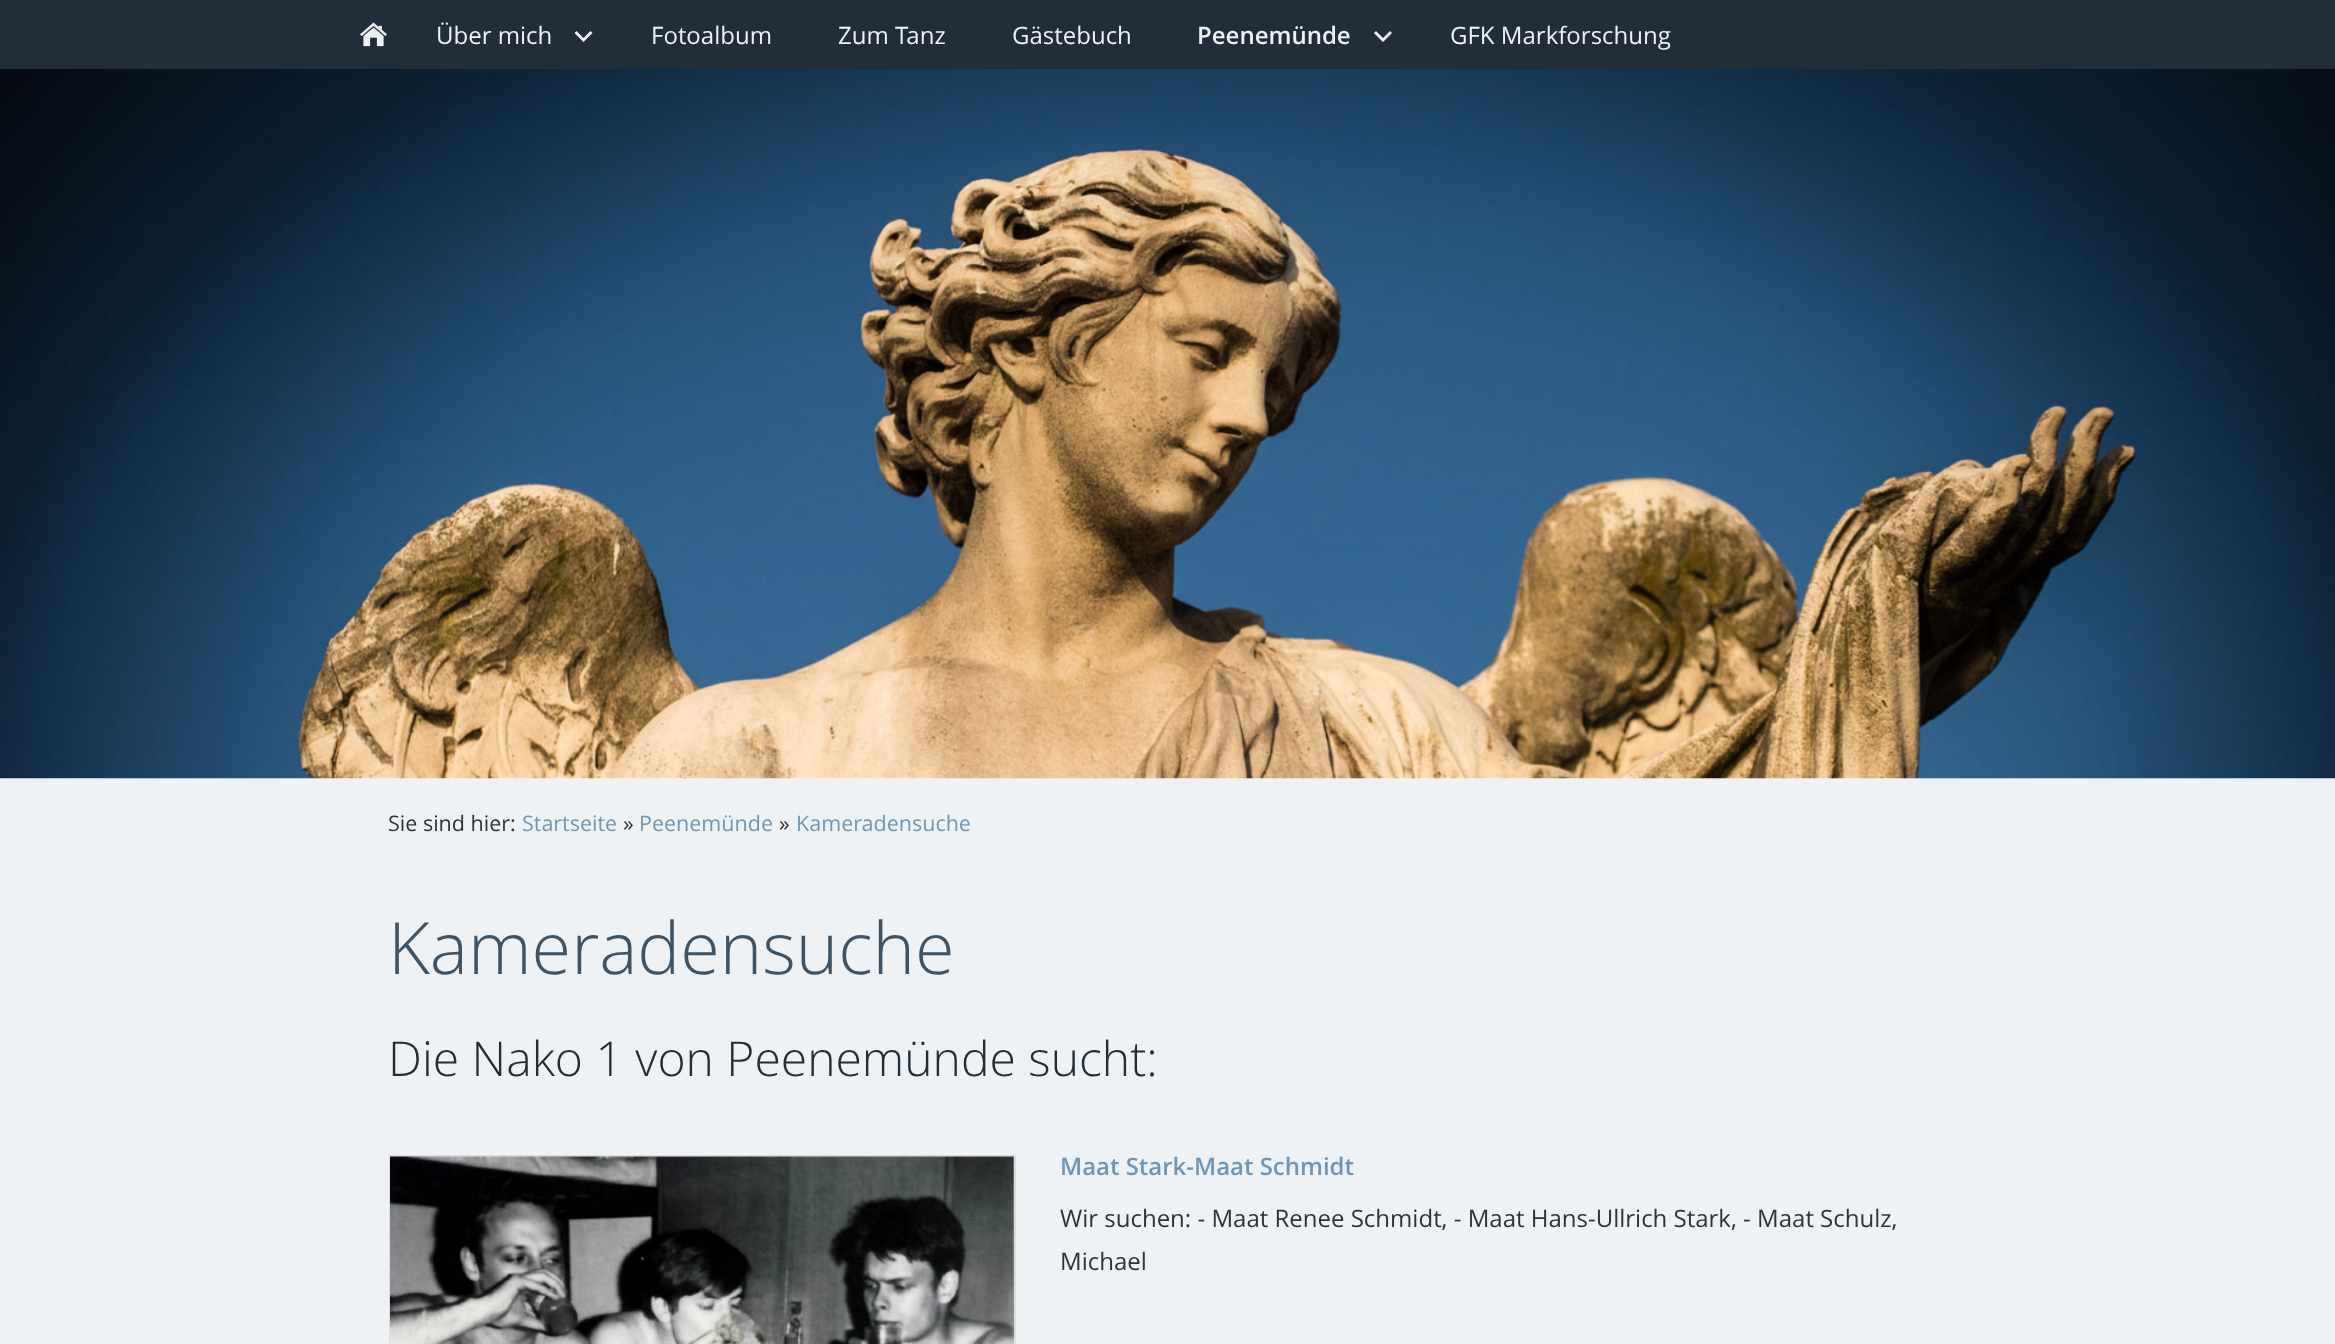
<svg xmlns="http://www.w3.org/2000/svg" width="2335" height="1344">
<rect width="100%" height="100%" fill="#212d38"/>
<image x="360" y="22" width="27" height="25" href="media/1.png"/>
<path d="M576.5 31l7 7l7-7l2 2l-9 9l-9-9z" fill="#eff2f4"/>
<text x="436" y="44" style="font-family:Open Sans;font-size:24px;fill:#eff2f4">Über mich</text>
<text x="651" y="44" style="font-family:Open Sans;font-size:24px;fill:#eff2f4">Fotoalbum</text>
<text x="838" y="44" style="font-family:Open Sans;font-size:24px;fill:#eff2f4">Zum Tanz</text>
<text x="1012" y="44" style="font-family:Open Sans;font-size:24px;fill:#eff2f4">Gästebuch</text>
<path d="M1376 31l7 7l7-7l2 2l-9 9l-9-9z" fill="#eff2f4"/>
<text x="1197" y="44" style="font-family:Open Sans;font-size:24px;font-weight:600;fill:#eff2f4">Peenemünde</text>
<text x="1450" y="44" style="font-family:Open Sans;font-size:24px;fill:#eff2f4">GFK Markforschung</text>
<rect y="778" width="2335" height="566" fill="#eff2f4"/>
<image x="0" y="69" width="2335" height="710" href="media/2.png"/>
<text x="388" y="831" style="font-family:Open Sans;font-size:21.5px;fill:#333">Sie sind hier:</text>
<text x="522" y="831" style="font-family:Open Sans;font-size:21.5px;fill:#6e96b7">Startseite</text>
<text x="623" y="831" style="font-family:Open Sans;font-size:21.5px;fill:#333">»</text>
<text x="639" y="831" style="font-family:Open Sans;font-size:21.5px;fill:#6e96b7">Peenemünde</text>
<text x="779" y="831" style="font-family:Open Sans;font-size:21.5px;fill:#333">»</text>
<text x="796" y="831" style="font-family:Open Sans;font-size:21.5px;fill:#6e96b7">Kameradensuche</text>
<text x="388" y="974" style="font-family:Open Sans;font-size:72px;font-weight:300;fill:#3d5366">Kameradensuche</text>
<text x="388" y="1076" style="font-family:Open Sans;font-size:48px;font-weight:300;fill:#212d38">Die Nako 1 von Peenemünde sucht:</text>
<rect x="390" y="1156" width="625" height="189" fill="none" stroke="#ddd" stroke-width="2"/>
<image x="390" y="1156" width="624" height="188" href="media/3.png"/>
<text x="1060" y="1175" style="font-family:Open Sans;font-size:24px;font-weight:600;fill:#6e96b7">Maat Stark-Maat Schmidt</text>
<text x="1060" y="1227" style="font-family:Open Sans;font-size:24px;fill:#333">Wir suchen: - Maat Renee Schmidt, - Maat Hans-Ullrich Stark, - Maat Schulz,</text>
<text x="1060" y="1270" style="font-family:Open Sans;font-size:24px;fill:#333">Michael</text>
</svg>
